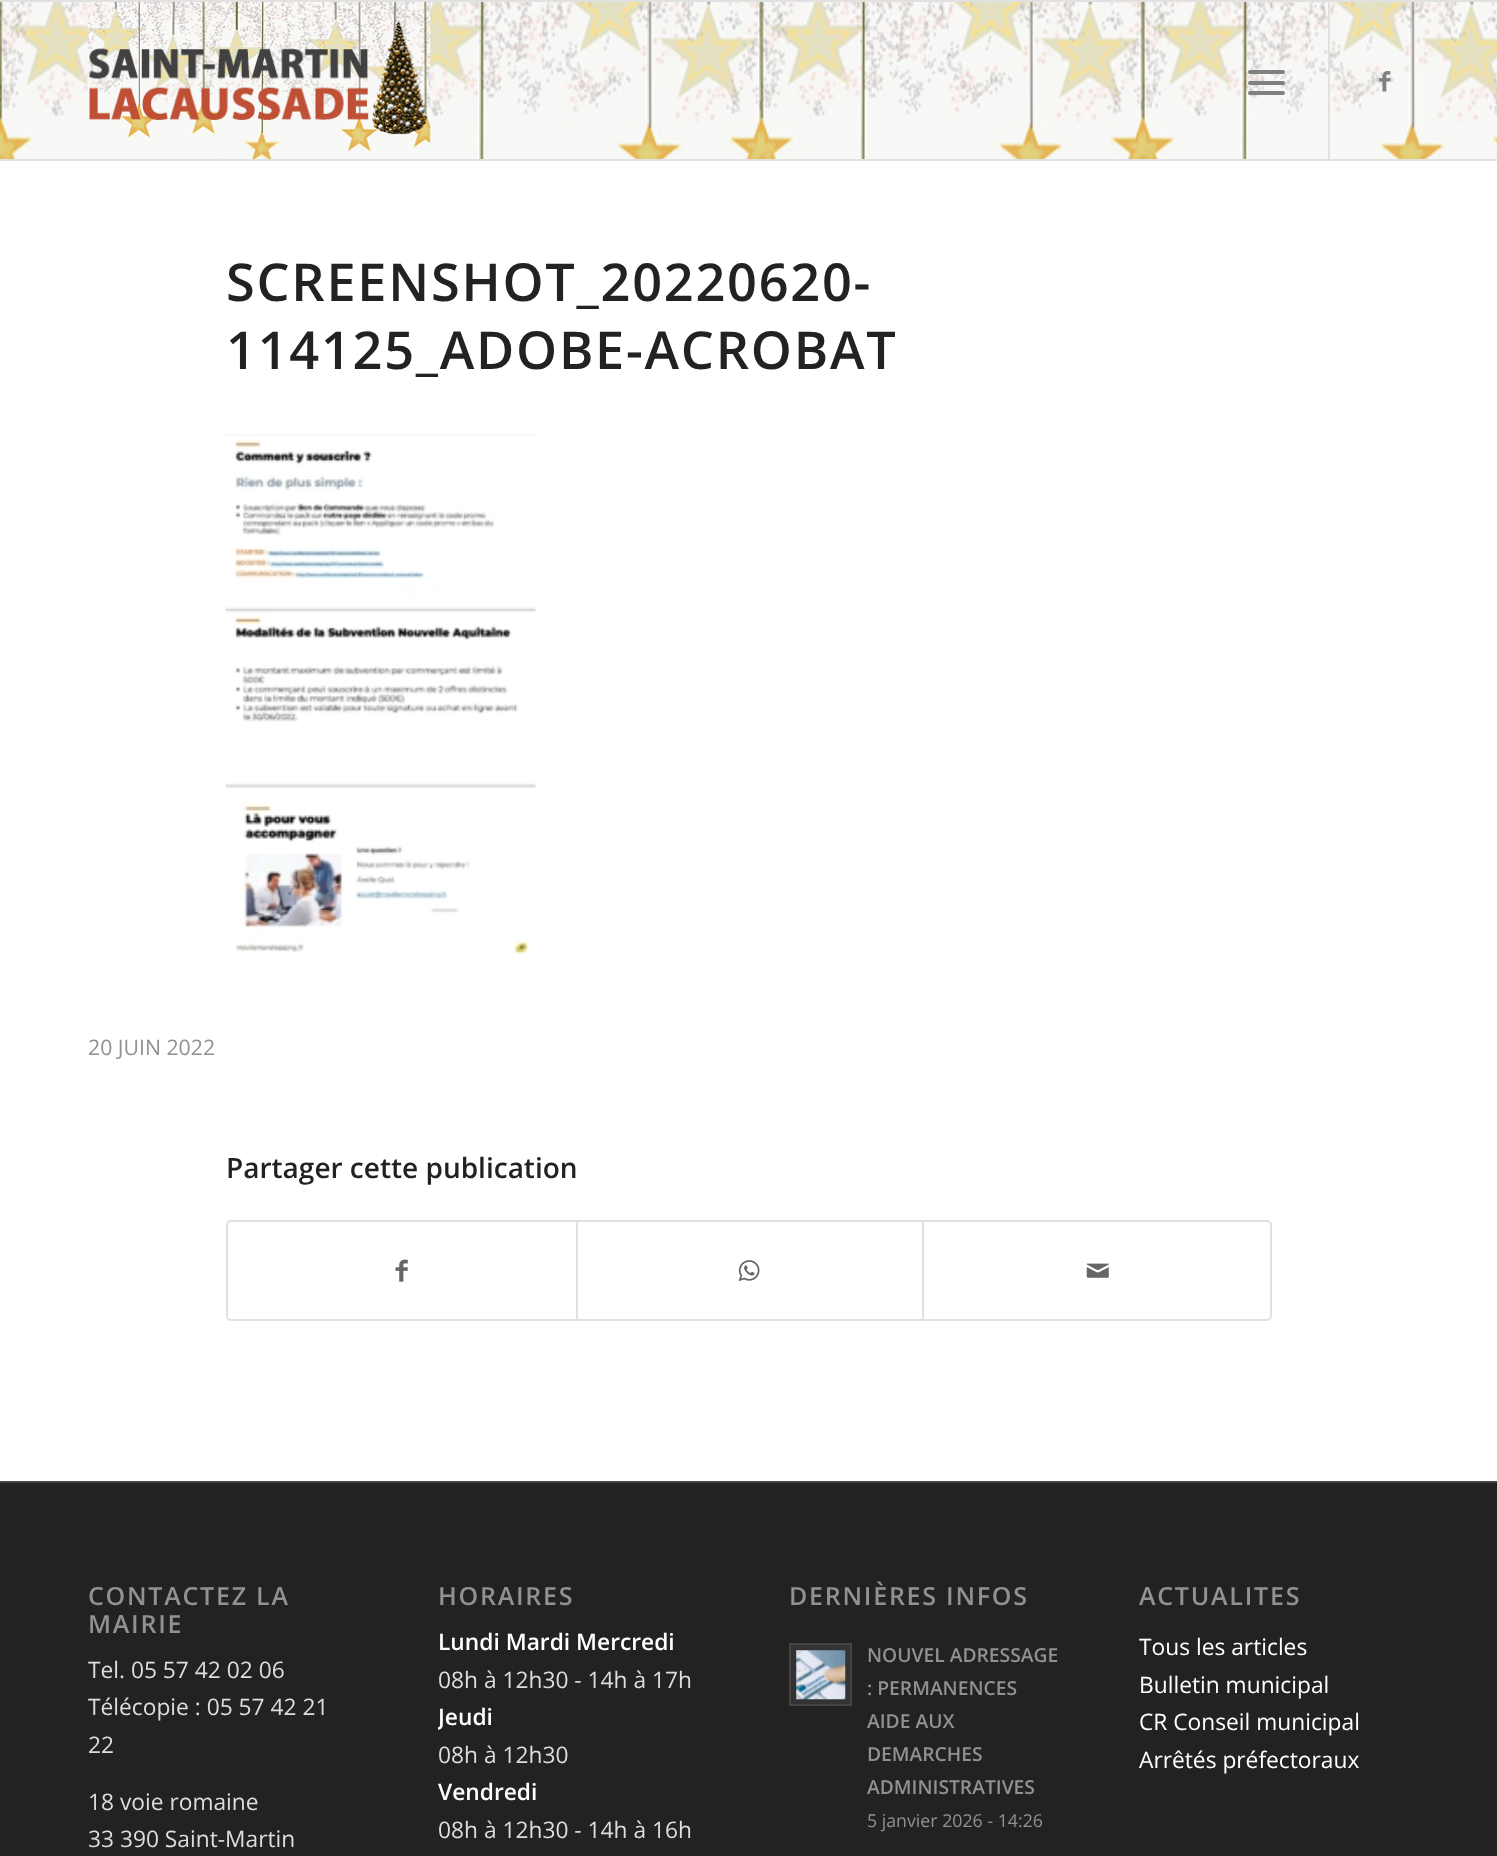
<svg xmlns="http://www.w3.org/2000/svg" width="1497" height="1856">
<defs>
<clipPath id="clip1"><rect x="88" y="1652" width="271" height="112"/></clipPath>
<clipPath id="clip2"><rect x="438" y="1624" width="271" height="226"/></clipPath>
</defs>
<rect width="100%" height="100%" fill="#fff"/>
<rect width="1497" height="2" fill="#e1e1e1"/>
<rect y="159" width="1497" height="2" fill="#e1e1e1"/>
<image x="0" y="2" width="1497" height="157" href="media/3.png"/>
<image x="87" y="1" width="344" height="159" href="media/1.png"/>
<rect x="1328" y="2" width="2" height="157" fill="#e1e1e1"/>
<rect x="1248" y="81" width="37" height="4" rx="2" fill="#808080"/>
<rect x="1248" y="70" width="37" height="4" rx="2" fill="#808080"/>
<rect x="1248" y="91" width="37" height="4" rx="2" fill="#808080"/>
<image x="1379" y="71" width="12" height="21" href="media/2.png"/>
<text x="226" y="301" style="font-family:Open Sans;font-size:52.25px;font-weight:600;letter-spacing:1.75px;fill:#222">SCREENSHOT_20220620-</text>
<text x="226" y="369" style="font-family:Open Sans;font-size:52.25px;font-weight:600;letter-spacing:1.75px;fill:#222">114125_ADOBE-ACROBAT</text>
<image x="225" y="434" width="311" height="521" href="media/4.png"/>
<text x="88" y="1055" style="font-family:Open Sans;font-size:21.25px;fill:#919191">20 JUIN 2022</text>
<text x="226" y="1178" style="font-family:Open Sans;font-size:28px;font-weight:600;fill:#222">Partager cette publication</text>
<rect x="227" y="1221" width="1044" height="99" rx="4" fill="none" stroke="#e1e1e1" stroke-width="2"/>
<image x="395" y="1259" width="13" height="23" href="media/5.png"/>
<rect x="576" y="1222" width="2" height="98" fill="#e1e1e1"/>
<image x="738" y="1260" width="22" height="22" href="media/6.png"/>
<rect x="922" y="1222" width="2" height="98" fill="#e1e1e1"/>
<image x="1086" y="1263" width="23" height="15" href="media/7.png"/>
<rect y="1483" width="1497" height="373" fill="#222"/>
<rect y="1481" width="1497" height="2" fill="#444"/>
<text x="88" y="1605" style="font-family:Open Sans;font-size:25px;font-weight:600;letter-spacing:1.75px;fill:#919191">CONTACTEZ LA</text>
<text x="88" y="1633" style="font-family:Open Sans;font-size:25px;font-weight:600;letter-spacing:1.75px;fill:#919191">MAIRIE</text>
<g clip-path="url(#clip1)">
<text x="88" y="1678" style="font-family:Open Sans;font-size:22.75px;fill:#ddd">Tel. 05 57 42 02 06</text>
<text x="88" y="1715" style="font-family:Open Sans;font-size:22.75px;fill:#ddd">Télécopie : 05 57 42 21</text>
</g>
<text x="88" y="1753" style="font-family:Open Sans;font-size:22.75px;fill:#ddd">22</text>
<text x="88" y="1810" style="font-family:Open Sans;font-size:22.75px;fill:#ddd">18 voie romaine</text>
<text x="88" y="1847" style="font-family:Open Sans;font-size:22.75px;fill:#ddd">33 390 Saint-Martin</text>
<text x="438" y="1605" style="font-family:Open Sans;font-size:25px;font-weight:600;letter-spacing:1.75px;fill:#919191">HORAIRES</text>
<text x="438" y="1650" style="font-family:Open Sans;font-size:22.75px;font-weight:600;fill:#fff">Lundi Mardi Mercredi</text>
<text x="438" y="1688" style="font-family:Open Sans;font-size:22.75px;fill:#ddd">08h à 12h30 - 14h à 17h</text>
<g clip-path="url(#clip2)">
<text x="438" y="1725" style="font-family:Open Sans;font-size:22.75px;font-weight:600;fill:#fff">Jeudi</text>
</g>
<text x="438" y="1763" style="font-family:Open Sans;font-size:22.75px;fill:#ddd">08h à 12h30</text>
<text x="438" y="1800" style="font-family:Open Sans;font-size:22.75px;font-weight:600;fill:#fff">Vendredi</text>
<text x="438" y="1838" style="font-family:Open Sans;font-size:22.75px;fill:#ddd">08h à 12h30 - 14h à 16h</text>
<text x="789" y="1605" style="font-family:Open Sans;font-size:25px;font-weight:600;letter-spacing:1.75px;fill:#919191">DERNIÈRES INFOS</text>
<rect x="790" y="1644" width="61" height="61" fill="#333" stroke="#444" stroke-width="2"/>
<image x="796" y="1650" width="50" height="50" href="media/8.png"/>
<text x="867" y="1662" style="font-family:Open Sans;font-size:19.25px;font-weight:600;fill:#919191">NOUVEL ADRESSAGE</text>
<text x="867" y="1695" style="font-family:Open Sans;font-size:19.25px;font-weight:600;fill:#919191">: PERMANENCES</text>
<text x="867" y="1728" style="font-family:Open Sans;font-size:19.25px;font-weight:600;fill:#919191">AIDE AUX</text>
<text x="867" y="1761" style="font-family:Open Sans;font-size:19.25px;font-weight:600;fill:#919191">DEMARCHES</text>
<text x="867" y="1794" style="font-family:Open Sans;font-size:19.25px;font-weight:600;fill:#919191">ADMINISTRATIVES</text>
<text x="867" y="1827" style="font-family:Open Sans;font-size:17.75px;fill:#919191">5 janvier 2026 - 14:26</text>
<text x="1139" y="1605" style="font-family:Open Sans;font-size:25px;font-weight:600;letter-spacing:1.75px;fill:#919191">ACTUALITES</text>
<text x="1139" y="1655" style="font-family:Open Sans;font-size:22.75px;fill:#fff">Tous les articles</text>
<text x="1139" y="1693" style="font-family:Open Sans;font-size:22.75px;fill:#fff">Bulletin municipal</text>
<text x="1139" y="1730" style="font-family:Open Sans;font-size:22.75px;fill:#fff">CR Conseil municipal</text>
<text x="1139" y="1768" style="font-family:Open Sans;font-size:22.75px;fill:#fff">Arrêtés préfectoraux</text>
</svg>
